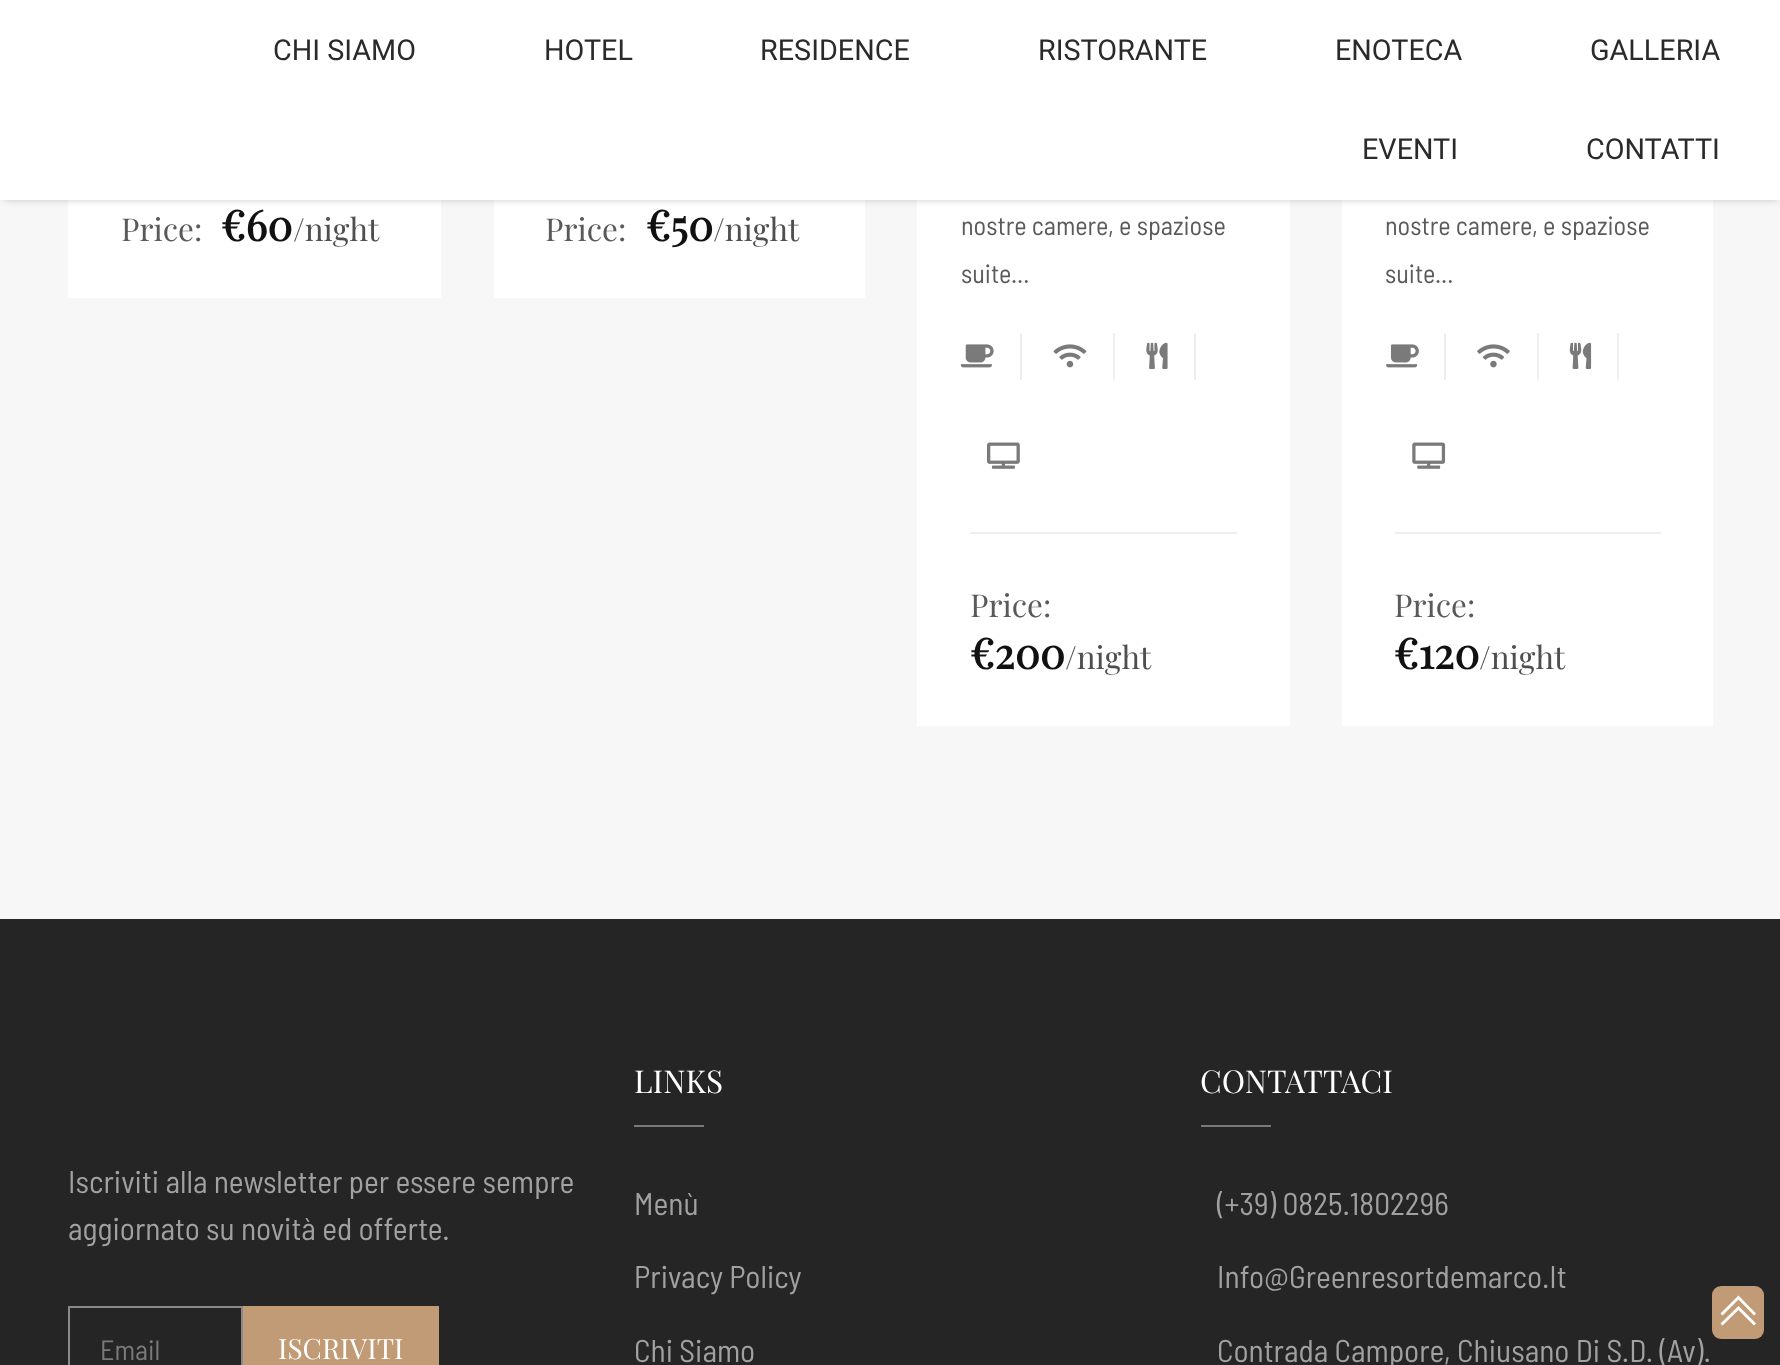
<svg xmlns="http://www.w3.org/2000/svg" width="1780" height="1365">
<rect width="100%" height="100%" fill="#f7f7f7"/>
<rect x="68" y="200" width="373" height="98" fill="#fff"/>
<rect x="494" y="200" width="371" height="98" fill="#fff"/>
<rect x="917" y="200" width="373" height="526" fill="#fff"/>
<rect x="1342" y="200" width="371" height="526" fill="#fff"/>
<rect x="4" y="5" width="1774" height="193" fill="#2a2a2a66" filter="blur(4.5px)"/>
<rect width="1780" height="200" fill="#fff"/>
<text x="273" y="60" style="font-family:Roboto;font-size:28.75px;fill:#2a2a2a">CHI SIAMO</text>
<text x="544" y="60" style="font-family:Roboto;font-size:28.75px;fill:#2a2a2a">HOTEL</text>
<text x="760" y="60" style="font-family:Roboto;font-size:28.75px;fill:#2a2a2a">RESIDENCE</text>
<text x="1038" y="60" style="font-family:Roboto;font-size:28.75px;fill:#2a2a2a">RISTORANTE</text>
<text x="1335" y="60" style="font-family:Roboto;font-size:28.75px;fill:#2a2a2a">ENOTECA</text>
<text x="1590" y="60" style="font-family:Roboto;font-size:28.75px;fill:#2a2a2a">GALLERIA</text>
<text x="1362" y="159" style="font-family:Roboto;font-size:28.75px;fill:#2a2a2a">EVENTI</text>
<text x="1586" y="159" style="font-family:Roboto;font-size:28.75px;fill:#2a2a2a">CONTATTI</text>
<text x="121" y="241" style="font-family:Playfair Display;font-size:31.5px;fill:#5a5a5a">Price:</text>
<text x="221" y="241" style="font-family:Playfair Display;font-size:42px;font-weight:bold;fill:#111">€60</text>
<text x="293" y="241" style="font-family:Playfair Display;font-size:31.5px;fill:#4f4f4f">/night</text>
<text x="545" y="241" style="font-family:Playfair Display;font-size:31.5px;fill:#5a5a5a">Price:</text>
<text x="646" y="241" style="font-family:Playfair Display;font-size:42px;font-weight:bold;fill:#111">€50</text>
<text x="713" y="241" style="font-family:Playfair Display;font-size:31.5px;fill:#4f4f4f">/night</text>
<text x="961" y="235" style="font-family:Barlow Semi Condensed;font-size:26.25px;fill:#5a5a5a">nostre camere, e spaziose</text>
<text x="961" y="283" style="font-family:Barlow Semi Condensed;font-size:26.25px;fill:#5a5a5a">suite...</text>
<rect x="1020" y="333" width="2" height="47" fill="#eee"/>
<image x="960" y="344" width="34" height="24" href="media/1.png"/>
<rect x="1113" y="333" width="2" height="47" fill="#eee"/>
<image x="1053" y="344" width="34" height="24" href="media/2.png"/>
<rect x="1194" y="333" width="2" height="47" fill="#eee"/>
<image x="1146" y="342" width="22" height="27" href="media/3.png"/>
<image x="987" y="442" width="33" height="27" href="media/4.png"/>
<rect x="970" y="532" width="267" height="2" fill="#eee"/>
<text x="970" y="617" style="font-family:Playfair Display;font-size:31.5px;fill:#5a5a5a">Price:</text>
<text x="970" y="669" style="font-family:Playfair Display;font-size:42px;font-weight:bold;fill:#111">€200</text>
<text x="1065" y="669" style="font-family:Playfair Display;font-size:31.5px;fill:#4f4f4f">/night</text>
<text x="1385" y="235" style="font-family:Barlow Semi Condensed;font-size:26.25px;fill:#5a5a5a">nostre camere, e spaziose</text>
<text x="1385" y="283" style="font-family:Barlow Semi Condensed;font-size:26.25px;fill:#5a5a5a">suite...</text>
<rect x="1444" y="333" width="2" height="47" fill="#eee"/>
<image x="1386" y="344" width="33" height="24" href="media/5.png"/>
<rect x="1537" y="333" width="2" height="47" fill="#eee"/>
<image x="1477" y="344" width="33" height="24" href="media/6.png"/>
<rect x="1617" y="333" width="2" height="47" fill="#eee"/>
<image x="1569" y="342" width="23" height="27" href="media/7.png"/>
<image x="1412" y="442" width="34" height="27" href="media/8.png"/>
<rect x="1395" y="532" width="266" height="2" fill="#eee"/>
<text x="1394" y="617" style="font-family:Playfair Display;font-size:31.5px;fill:#5a5a5a">Price:</text>
<text x="1394" y="669" style="font-family:Playfair Display;font-size:42px;font-weight:bold;fill:#111">€120</text>
<text x="1479" y="669" style="font-family:Playfair Display;font-size:31.5px;fill:#4f4f4f">/night</text>
<rect y="919" width="1780" height="446" fill="#252525"/>
<text x="68" y="1193" style="font-family:Barlow Semi Condensed;font-size:31.5px;fill:#a1a1a1">Iscriviti alla newsletter per essere sempre</text>
<text x="68" y="1240" style="font-family:Barlow Semi Condensed;font-size:31.5px;fill:#a1a1a1">aggiornato su novità ed offerte.</text>
<rect x="69" y="1307" width="173" height="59" fill="none" stroke="#89898a" stroke-width="2"/>
<text x="100" y="1360" style="font-family:Barlow Semi Condensed;font-size:28px;fill:#7a7a7a">Email</text>
<rect x="243" y="1306" width="196" height="59" fill="#c19b76"/>
<text x="278" y="1359" style="font-family:Playfair Display;font-size:28px;fill:#fff">ISCRIVITI</text>
<text x="634" y="1093" style="font-family:Playfair Display;font-size:31.5px;fill:#fff">LINKS</text>
<rect x="634" y="1125" width="70" height="2" fill="#7a7a7a"/>
<text x="634" y="1215" style="font-family:Barlow Semi Condensed;font-size:31.5px;fill:#a1a1a1">Menù</text>
<text x="634" y="1288" style="font-family:Barlow Semi Condensed;font-size:31.5px;fill:#a1a1a1">Privacy Policy</text>
<text x="634" y="1362" style="font-family:Barlow Semi Condensed;font-size:31.5px;fill:#a1a1a1">Chi Siamo</text>
<text x="1200" y="1093" style="font-family:Playfair Display;font-size:31.5px;fill:#fff">CONTATTACI</text>
<rect x="1201" y="1125" width="70" height="2" fill="#7a7a7a"/>
<text x="1217" y="1215" style="font-family:Barlow Semi Condensed;font-size:31.5px;fill:#a1a1a1">(+39) 0825.1802296</text>
<text x="1217" y="1288" style="font-family:Barlow Semi Condensed;font-size:31.5px;fill:#a1a1a1">Info@Greenresortdemarco.It</text>
<text x="1217" y="1362" style="font-family:Barlow Semi Condensed;font-size:31.5px;fill:#a1a1a1">Contrada Campore, Chiusano Di S.D. (Av).</text>
<rect x="1712" y="1286" width="52" height="53" rx="9" fill="#c19b76"/>
<path d="M1738.5 1295.5l-18 18l2 2l16-16l15.5 16l2-2zm0 10.5l-18 17.5l2 2l16-15.5l15.5 15.5l2-2z" fill="#fff"/>
</svg>
